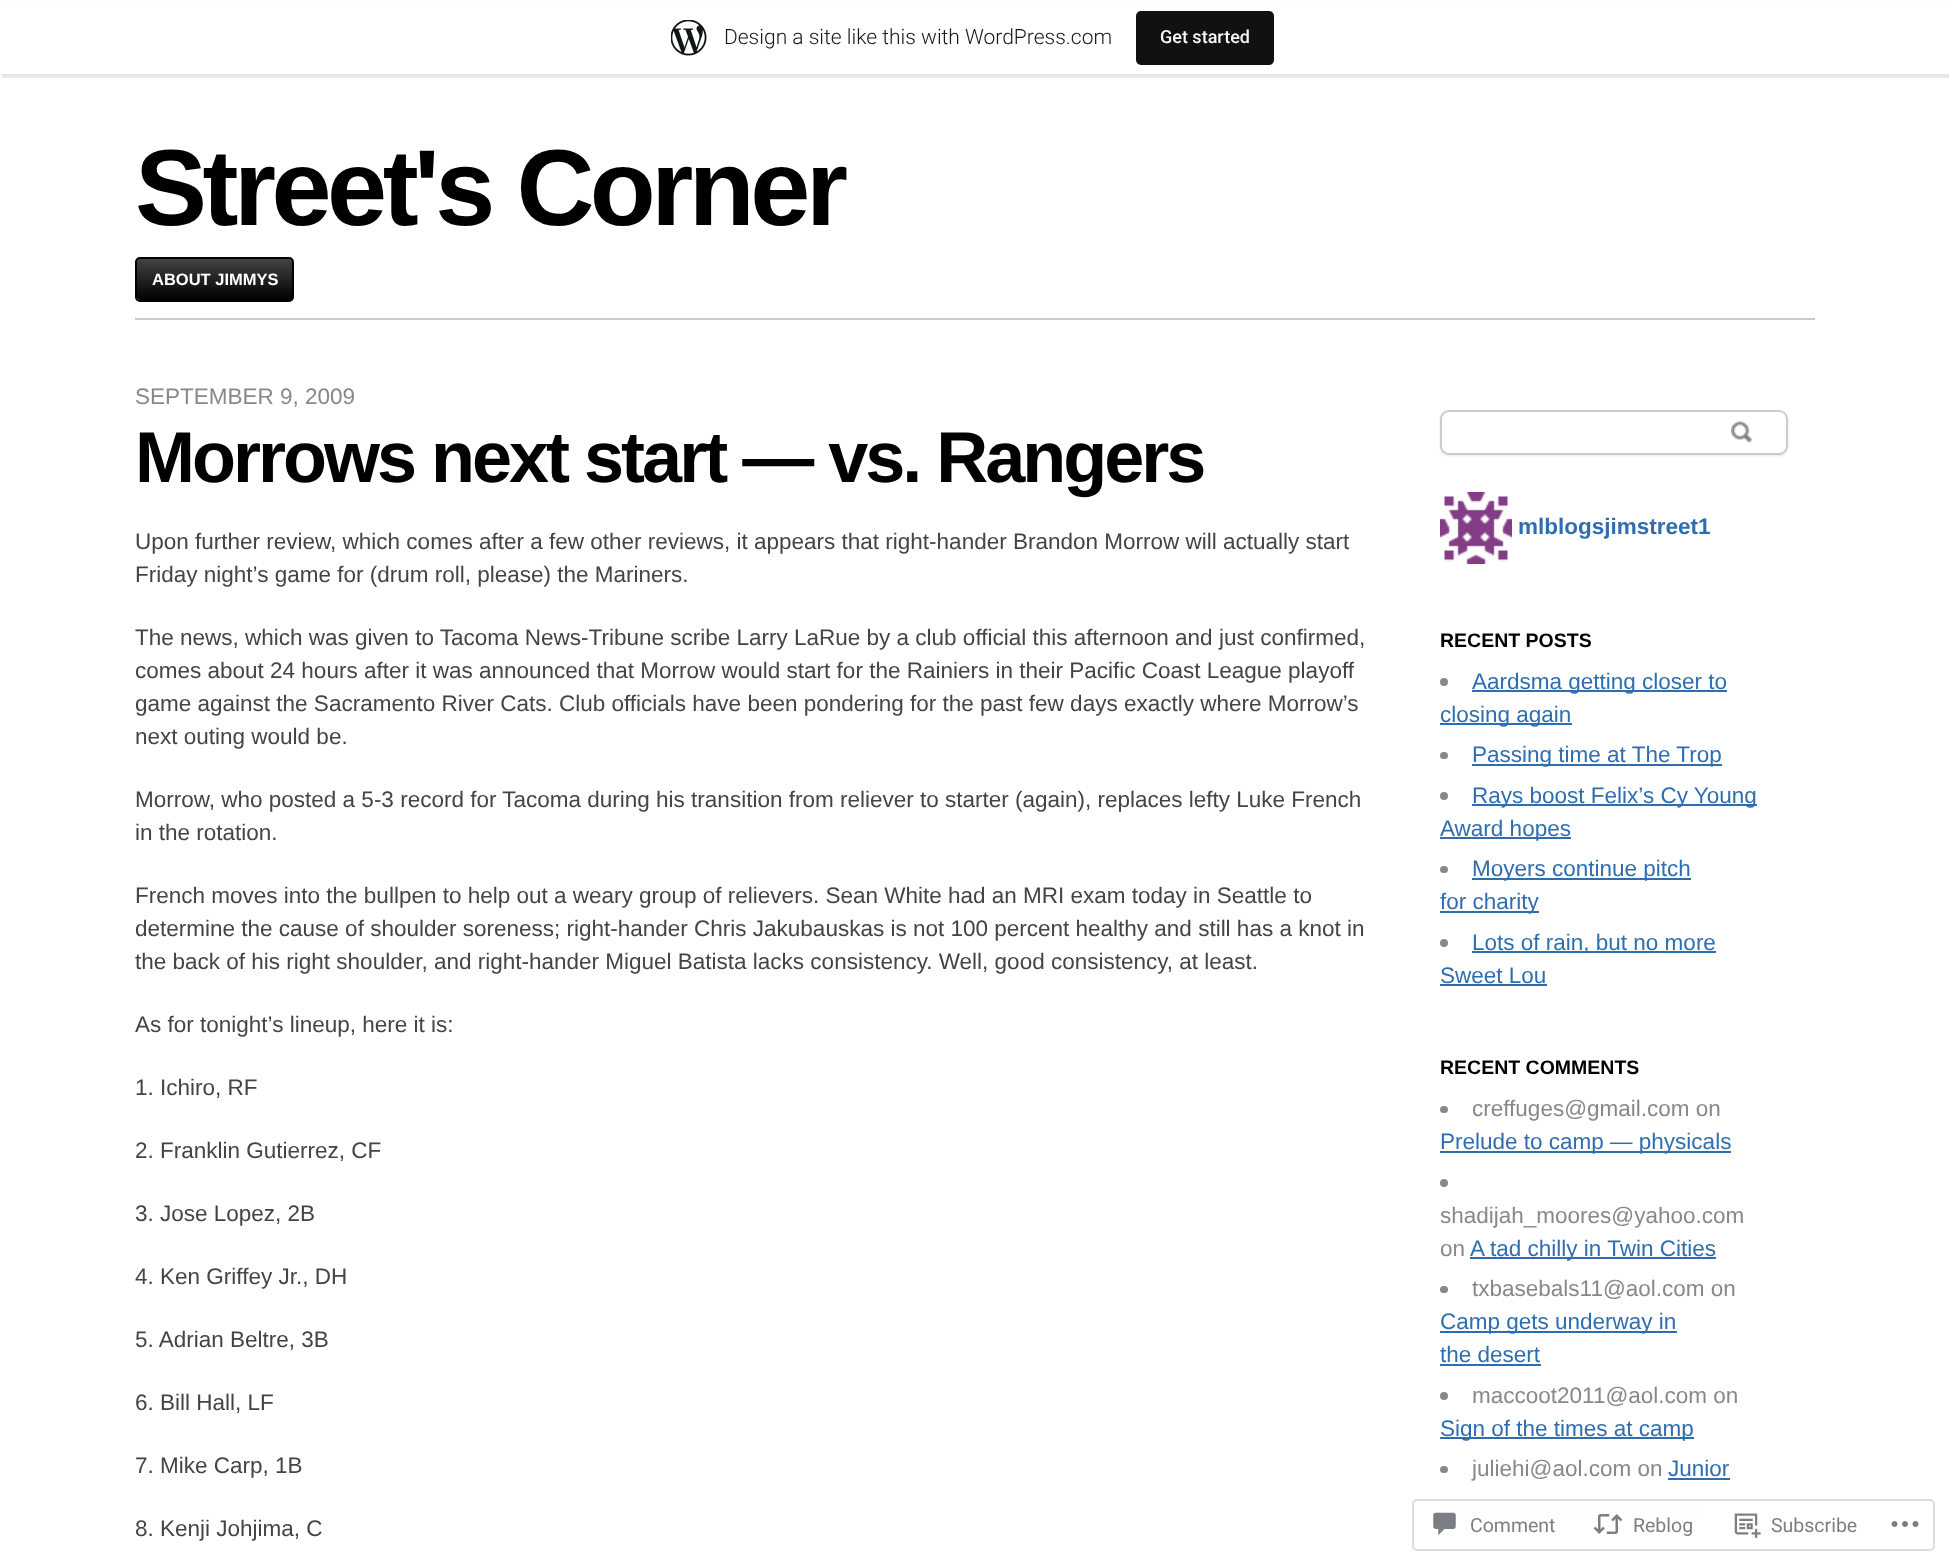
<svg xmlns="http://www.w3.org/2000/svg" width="1949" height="1566">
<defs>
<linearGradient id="g1" gradientUnits="userSpaceOnUse" x1="137" y1="258" x2="137" y2="300"><stop offset="0" stop-color="#454545"/><stop offset="1" stop-color="#000"/></linearGradient>
</defs>
<rect width="100%" height="100%" fill="#fff"/>
<rect y="2" width="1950" height="73" fill="#0000000d" filter="blur(1.5px)"/>
<path d="M2 74v4h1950v-73h-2v69z" fill="#00000014"/>
<rect y="1" width="1949" height="73" fill="#fff"/>
<image x="671" y="20" width="36" height="36" href="media/1.png"/>
<text x="724" y="44" style="font-family:Roboto;font-size:21px;font-weight:300;fill:#171717">Design a site like this with WordPress.com</text>
<rect x="1136" y="11" width="138" height="54" rx="5" fill="#111"/>
<text x="1160" y="43" style="font-family:Roboto;font-size:18px;font-weight:500;fill:#f6f7f7">Get started</text>
<rect x="135" y="318" width="1680" height="2" fill="#ccc"/>
<text x="135" y="225" style="font-family:Liberation Sans;font-size:108px;font-weight:bold;letter-spacing:-4.5px;fill:#000">Street's Corner</text>
<rect x="137" y="258" width="156" height="42" rx="3" fill="url(#g1)"/>
<rect x="136" y="258" width="157" height="43" rx="4" fill="none" stroke="#000" stroke-width="2"/>
<text x="152" y="285" style="font-family:Liberation Sans;font-size:16.5px;font-weight:bold;fill:#fff">ABOUT JIMMYS</text>
<text x="135" y="404" style="font-family:Liberation Sans;font-size:22.5px;fill:#888">SEPTEMBER 9, 2009</text>
<text x="135" y="482" style="font-family:Liberation Sans;font-size:72px;font-weight:bold;letter-spacing:-3px;fill:#000">Morrows next start — vs. Rangers</text>
<text x="135" y="549" style="font-family:Liberation Sans;font-size:22.5px;fill:#444">Upon further review, which comes after a few other reviews, it appears that right-hander Brandon Morrow will actually start</text>
<text x="135" y="582" style="font-family:Liberation Sans;font-size:22.5px;fill:#444">Friday night’s game for (drum roll, please) the Mariners.</text>
<text x="135" y="645" style="font-family:Liberation Sans;font-size:22.5px;fill:#444">The news, which was given to Tacoma News-Tribune scribe Larry LaRue by a club official this afternoon and just confirmed,</text>
<text x="135" y="678" style="font-family:Liberation Sans;font-size:22.5px;fill:#444">comes about 24 hours after it was announced that Morrow would start for the Rainiers in their Pacific Coast League playoff</text>
<text x="135" y="711" style="font-family:Liberation Sans;font-size:22.5px;fill:#444">game against the Sacramento River Cats. Club officials have been pondering for the past few days exactly where Morrow’s</text>
<text x="135" y="744" style="font-family:Liberation Sans;font-size:22.5px;fill:#444">next outing would be.</text>
<text x="135" y="807" style="font-family:Liberation Sans;font-size:22.5px;fill:#444">Morrow, who posted a 5-3 record for Tacoma during his transition from reliever to starter (again), replaces lefty Luke French</text>
<text x="135" y="840" style="font-family:Liberation Sans;font-size:22.5px;fill:#444">in the rotation.</text>
<text x="135" y="903" style="font-family:Liberation Sans;font-size:22.5px;fill:#444">French moves into the bullpen to help out a weary group of relievers. Sean White had an MRI exam today in Seattle to</text>
<text x="135" y="936" style="font-family:Liberation Sans;font-size:22.5px;fill:#444">determine the cause of shoulder soreness; right-hander Chris Jakubauskas is not 100 percent healthy and still has a knot in</text>
<text x="135" y="969" style="font-family:Liberation Sans;font-size:22.5px;fill:#444">the back of his right shoulder, and right-hander Miguel Batista lacks consistency. Well, good consistency, at least.</text>
<text x="135" y="1032" style="font-family:Liberation Sans;font-size:22.5px;fill:#444">As for tonight’s lineup, here it is:</text>
<text x="135" y="1095" style="font-family:Liberation Sans;font-size:22.5px;fill:#444">1. Ichiro, RF</text>
<text x="135" y="1158" style="font-family:Liberation Sans;font-size:22.5px;fill:#444">2. Franklin Gutierrez, CF</text>
<text x="135" y="1221" style="font-family:Liberation Sans;font-size:22.5px;fill:#444">3. Jose Lopez, 2B</text>
<text x="135" y="1284" style="font-family:Liberation Sans;font-size:22.5px;fill:#444">4. Ken Griffey Jr., DH</text>
<text x="135" y="1347" style="font-family:Liberation Sans;font-size:22.5px;fill:#444">5. Adrian Beltre, 3B</text>
<text x="135" y="1410" style="font-family:Liberation Sans;font-size:22.5px;fill:#444">6. Bill Hall, LF</text>
<text x="135" y="1473" style="font-family:Liberation Sans;font-size:22.5px;fill:#444">7. Mike Carp, 1B</text>
<text x="135" y="1536" style="font-family:Liberation Sans;font-size:22.5px;fill:#444">8. Kenji Johjima, C</text>
<rect x="1440" y="411" width="348" height="45" rx="9" fill="#0000001a" filter="blur(1px)"/>
<rect x="1441" y="411" width="346" height="43" rx="8" fill="#fff" stroke="#ccc" stroke-width="2"/>
<image x="1731" y="421" width="21" height="22" href="media/2.png"/>
<image x="1440" y="492" width="72" height="72" href="media/3.png"/>
<text x="1518" y="534" style="font-family:Liberation Sans;font-size:22.5px;font-weight:bold;fill:#2e6eb0">mlblogsjimstreet1</text>
<text x="1440" y="647" style="font-family:Liberation Sans;font-size:19.5px;font-weight:bold;fill:#000">RECENT POSTS</text>
<circle cx="1444" cy="682" r="4" fill="#888"/>
<rect x="1472" y="690" width="255" height="2" fill="#2e6eb0"/>
<text x="1472" y="689" style="font-family:Liberation Sans;font-size:22.5px;fill:#2e6eb0">Aardsma getting closer to</text>
<rect x="1440" y="723" width="132" height="2" fill="#2e6eb0"/>
<text x="1440" y="722" style="font-family:Liberation Sans;font-size:22.5px;fill:#2e6eb0">closing again</text>
<rect x="1440" y="752" width="8" height="7" rx="3.5" fill="#888"/>
<rect x="1472" y="764" width="250" height="2" fill="#2e6eb0"/>
<text x="1472" y="762" style="font-family:Liberation Sans;font-size:22.5px;fill:#2e6eb0">Passing time at The Trop</text>
<circle cx="1444" cy="796" r="4" fill="#888"/>
<rect x="1472" y="804" width="285" height="2" fill="#2e6eb0"/>
<text x="1472" y="803" style="font-family:Liberation Sans;font-size:22.5px;fill:#2e6eb0">Rays boost Felix’s Cy Young</text>
<rect x="1440" y="837" width="131" height="2" fill="#2e6eb0"/>
<text x="1440" y="836" style="font-family:Liberation Sans;font-size:22.5px;fill:#2e6eb0">Award hopes</text>
<rect x="1440" y="866" width="8" height="7" rx="3.5" fill="#888"/>
<rect x="1472" y="878" width="219" height="2" fill="#2e6eb0"/>
<text x="1472" y="876" style="font-family:Liberation Sans;font-size:22.5px;fill:#2e6eb0">Moyers continue pitch</text>
<rect x="1440" y="911" width="99" height="2" fill="#2e6eb0"/>
<text x="1440" y="909" style="font-family:Liberation Sans;font-size:22.5px;fill:#2e6eb0">for charity</text>
<circle cx="1444" cy="943" r="4" fill="#888"/>
<rect x="1472" y="951" width="244" height="2" fill="#2e6eb0"/>
<text x="1472" y="950" style="font-family:Liberation Sans;font-size:22.5px;fill:#2e6eb0">Lots of rain, but no more</text>
<text x="1440" y="983" style="font-family:Liberation Sans;font-size:22.5px;fill:#2e6eb0">Sweet Lou</text>
<rect x="1440" y="984" width="107" height="2" fill="#2e6eb0"/>
<text x="1440" y="1074" style="font-family:Liberation Sans;font-size:19.5px;font-weight:bold;fill:#000">RECENT COMMENTS</text>
<rect x="1440" y="1106" width="8" height="7" rx="3.5" fill="#888"/>
<text x="1472" y="1116" style="font-family:Liberation Sans;font-size:22.5px;fill:#888">creffuges@gmail.com on</text>
<rect x="1440" y="1151" width="291" height="2" fill="#2e6eb0"/>
<text x="1440" y="1149" style="font-family:Liberation Sans;font-size:22.5px;fill:#2e6eb0">Prelude to camp — physicals</text>
<circle cx="1444" cy="1183" r="4" fill="#888"/>
<text x="1440" y="1223" style="font-family:Liberation Sans;font-size:22.5px;fill:#888">shadijah_moores@yahoo.com</text>
<text x="1440" y="1256" style="font-family:Liberation Sans;font-size:22.5px;fill:#888">on</text>
<rect x="1470" y="1257" width="246" height="2" fill="#2e6eb0"/>
<text x="1470" y="1256" style="font-family:Liberation Sans;font-size:22.5px;fill:#2e6eb0">A tad chilly in Twin Cities</text>
<rect x="1440" y="1286" width="8" height="7" rx="3.5" fill="#888"/>
<text x="1472" y="1296" style="font-family:Liberation Sans;font-size:22.5px;fill:#888">txbasebals11@aol.com on</text>
<rect x="1440" y="1331" width="237" height="2" fill="#2e6eb0"/>
<text x="1440" y="1329" style="font-family:Liberation Sans;font-size:22.5px;fill:#2e6eb0">Camp gets underway in</text>
<text x="1440" y="1362" style="font-family:Liberation Sans;font-size:22.5px;fill:#2e6eb0">the desert</text>
<rect x="1440" y="1364" width="101" height="2" fill="#2e6eb0"/>
<circle cx="1444" cy="1396" r="4" fill="#888"/>
<text x="1472" y="1403" style="font-family:Liberation Sans;font-size:22.5px;fill:#888">maccoot2011@aol.com on</text>
<rect x="1440" y="1437" width="254" height="2" fill="#2e6eb0"/>
<text x="1440" y="1436" style="font-family:Liberation Sans;font-size:22.5px;fill:#2e6eb0">Sign of the times at camp</text>
<rect x="1440" y="1466" width="8" height="7" rx="3.5" fill="#888"/>
<text x="1472" y="1476" style="font-family:Liberation Sans;font-size:22.5px;fill:#888">juliehi@aol.com on</text>
<text x="1668" y="1476" style="font-family:Liberation Sans;font-size:22.5px;fill:#2e6eb0">Junior</text>
<rect x="1668" y="1478" width="62" height="2" fill="#2e6eb0"/>
<rect x="1440" y="1511" width="267" height="2" fill="#2e6eb0"/>
<rect x="1412" y="1499" width="523" height="52" rx="5" fill="#fffffffa"/>
<rect x="1413" y="1500" width="521" height="50" rx="4" fill="none" stroke="#dcdcdefa" stroke-width="2"/>
<image x="1433" y="1512" width="23" height="24" href="media/4.png"/>
<text x="1470" y="1532" style="font-family:Roboto;font-size:19.5px;fill:#7b7f85">Comment</text>
<image x="1593" y="1514" width="30" height="20" href="media/5.png"/>
<text x="1633" y="1532" style="font-family:Roboto;font-size:19.5px;fill:#7b7f85">Reblog</text>
<image x="1734" y="1513" width="27" height="25" href="media/6.png"/>
<text x="1771" y="1532" style="font-family:Roboto;font-size:19.5px;fill:#7b7f85">Subscribe</text>
<image x="1891" y="1521" width="28" height="6" href="media/7.png"/>
</svg>
